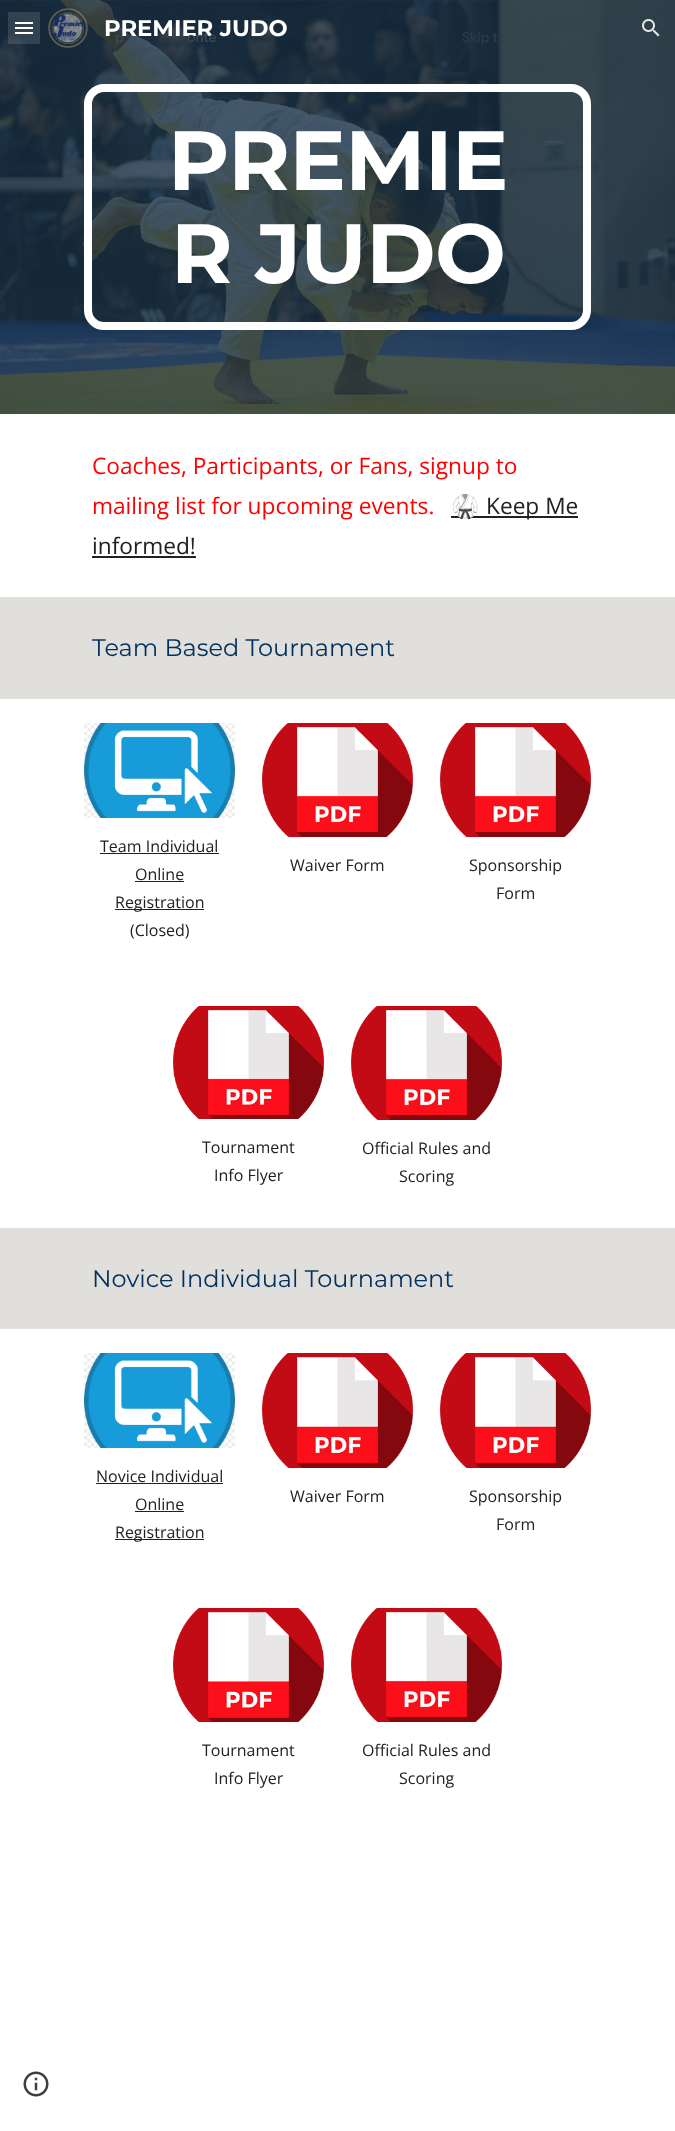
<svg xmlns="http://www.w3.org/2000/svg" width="675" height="2131">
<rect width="100%" height="100%" fill="#fff"/>
<image x="0" y="0" width="675" height="414" href="media/3.png"/>
<rect x="15" y="22" width="18" height="2" fill="#fff"/>
<rect x="15" y="27" width="18" height="2" fill="#fff"/>
<rect x="15" y="32" width="18" height="2" fill="#fff"/>
<rect x="8" y="12" width="32" height="32" fill="#ffffff1f"/>
<image x="47" y="8" width="42" height="40" href="media/1.png"/>
<text x="104" y="36" style="font-family:Montserrat;font-size:22.7px;font-weight:bold;fill:#fff">PREMIER JUDO</text>
<image x="642" y="19" width="18" height="18" href="media/2.png"/>
<rect x="88" y="88" width="499" height="238" rx="16" fill="none" stroke="#fff" stroke-width="8"/>
<text x="168" y="190" style="font-family:Montserrat;font-size:84px;font-weight:bold;letter-spacing:-0.5px;fill:#fff">PREMIE</text>
<text x="171" y="283" style="font-family:Montserrat;font-size:84px;font-weight:bold;letter-spacing:-0.5px;fill:#fff">R JUDO</text>
<text x="92" y="474" style="font-family:Open Sans;font-size:22.7px;fill:#f00">Coaches, Participants, or Fans, signup to</text>
<text x="92" y="514" style="font-family:Open Sans;font-size:22.7px;fill:#f00">mailing list for upcoming events.</text>
<rect x="451" y="516" width="127" height="2" fill="#212121"/>
<text x="451" y="514" style="font-family:Noto Color Emoji;font-size:22.7px;fill:#212121">🥋</text>
<text x="486" y="514" style="font-family:Open Sans;font-size:22.7px;fill:#212121">Keep Me</text>
<text x="92" y="554" style="font-family:Open Sans;font-size:22.7px;fill:#212121">informed!</text>
<rect x="92" y="556" width="104" height="2" fill="#212121"/>
<rect y="597" width="675" height="102" fill="#e1dfdb"/>
<text x="92" y="656" style="font-family:Montserrat;font-size:24px;fill:#00305f">Team Based Tournament</text>
<image x="84" y="723" width="151" height="95" href="media/4.png"/>
<text x="100" y="852" style="font-family:Open Sans;font-size:16px;fill:#212121">Team Individual</text>
<rect x="100" y="853" width="119" height="1" fill="#212121"/>
<text x="135" y="880" style="font-family:Open Sans;font-size:16px;fill:#212121">Online</text>
<rect x="135" y="881" width="49" height="1" fill="#212121"/>
<rect x="115" y="909" width="89" height="1" fill="#212121"/>
<text x="115" y="908" style="font-family:Open Sans;font-size:16px;fill:#212121">Registration</text>
<text x="130" y="936" style="font-family:Open Sans;font-size:16px;fill:#212121">(Closed)</text>
<image x="262" y="723" width="151" height="114" href="media/5.png"/>
<text x="290" y="871" style="font-family:Open Sans;font-size:16px;fill:#212121">Waiver Form</text>
<image x="440" y="723" width="151" height="114" href="media/6.png"/>
<text x="469" y="871" style="font-family:Open Sans;font-size:16px;fill:#212121">Sponsorship</text>
<text x="496" y="899" style="font-family:Open Sans;font-size:16px;fill:#212121">Form</text>
<image x="173" y="1006" width="151" height="113" href="media/7.png"/>
<text x="202" y="1153" style="font-family:Open Sans;font-size:16px;fill:#212121">Tournament</text>
<text x="214" y="1181" style="font-family:Open Sans;font-size:16px;fill:#212121">Info Flyer</text>
<image x="351" y="1006" width="151" height="114" href="media/5.png"/>
<text x="362" y="1154" style="font-family:Open Sans;font-size:16px;fill:#212121">Official Rules and</text>
<text x="399" y="1182" style="font-family:Open Sans;font-size:16px;fill:#212121">Scoring</text>
<rect y="1228" width="675" height="101" fill="#e1dfdb"/>
<text x="92" y="1287" style="font-family:Montserrat;font-size:24px;fill:#00305f">Novice Individual Tournament</text>
<image x="84" y="1353" width="151" height="95" href="media/4.png"/>
<text x="96" y="1482" style="font-family:Open Sans;font-size:16px;fill:#212121">Novice Individual</text>
<rect x="96" y="1483" width="127" height="1" fill="#212121"/>
<text x="135" y="1510" style="font-family:Open Sans;font-size:16px;fill:#212121">Online</text>
<rect x="135" y="1511" width="49" height="1" fill="#212121"/>
<rect x="115" y="1539" width="89" height="1" fill="#212121"/>
<text x="115" y="1538" style="font-family:Open Sans;font-size:16px;fill:#212121">Registration</text>
<image x="262" y="1353" width="151" height="115" href="media/8.png"/>
<text x="290" y="1502" style="font-family:Open Sans;font-size:16px;fill:#212121">Waiver Form</text>
<image x="440" y="1353" width="151" height="115" href="media/9.png"/>
<text x="469" y="1502" style="font-family:Open Sans;font-size:16px;fill:#212121">Sponsorship</text>
<text x="496" y="1530" style="font-family:Open Sans;font-size:16px;fill:#212121">Form</text>
<image x="173" y="1608" width="151" height="114" href="media/10.png"/>
<text x="202" y="1756" style="font-family:Open Sans;font-size:16px;fill:#212121">Tournament</text>
<text x="214" y="1784" style="font-family:Open Sans;font-size:16px;fill:#212121">Info Flyer</text>
<image x="351" y="1608" width="151" height="114" href="media/5.png"/>
<text x="362" y="1756" style="font-family:Open Sans;font-size:16px;fill:#212121">Official Rules and</text>
<text x="399" y="1784" style="font-family:Open Sans;font-size:16px;fill:#212121">Scoring</text>
<image x="23" y="2071" width="26" height="26" href="media/11.png"/>
<text x="115" y="42" style="font-family:Google Sans;font-size:14px;font-weight:500;fill:#3c4a54">p</text>
<text x="187" y="42" style="font-family:Google Sans;font-size:14px;font-weight:500;fill:#3c4a54">onte</text>
<text x="462" y="42" style="font-family:Google Sans;font-size:14px;font-weight:500;fill:#2b3c48">Skip t</text>
</svg>
